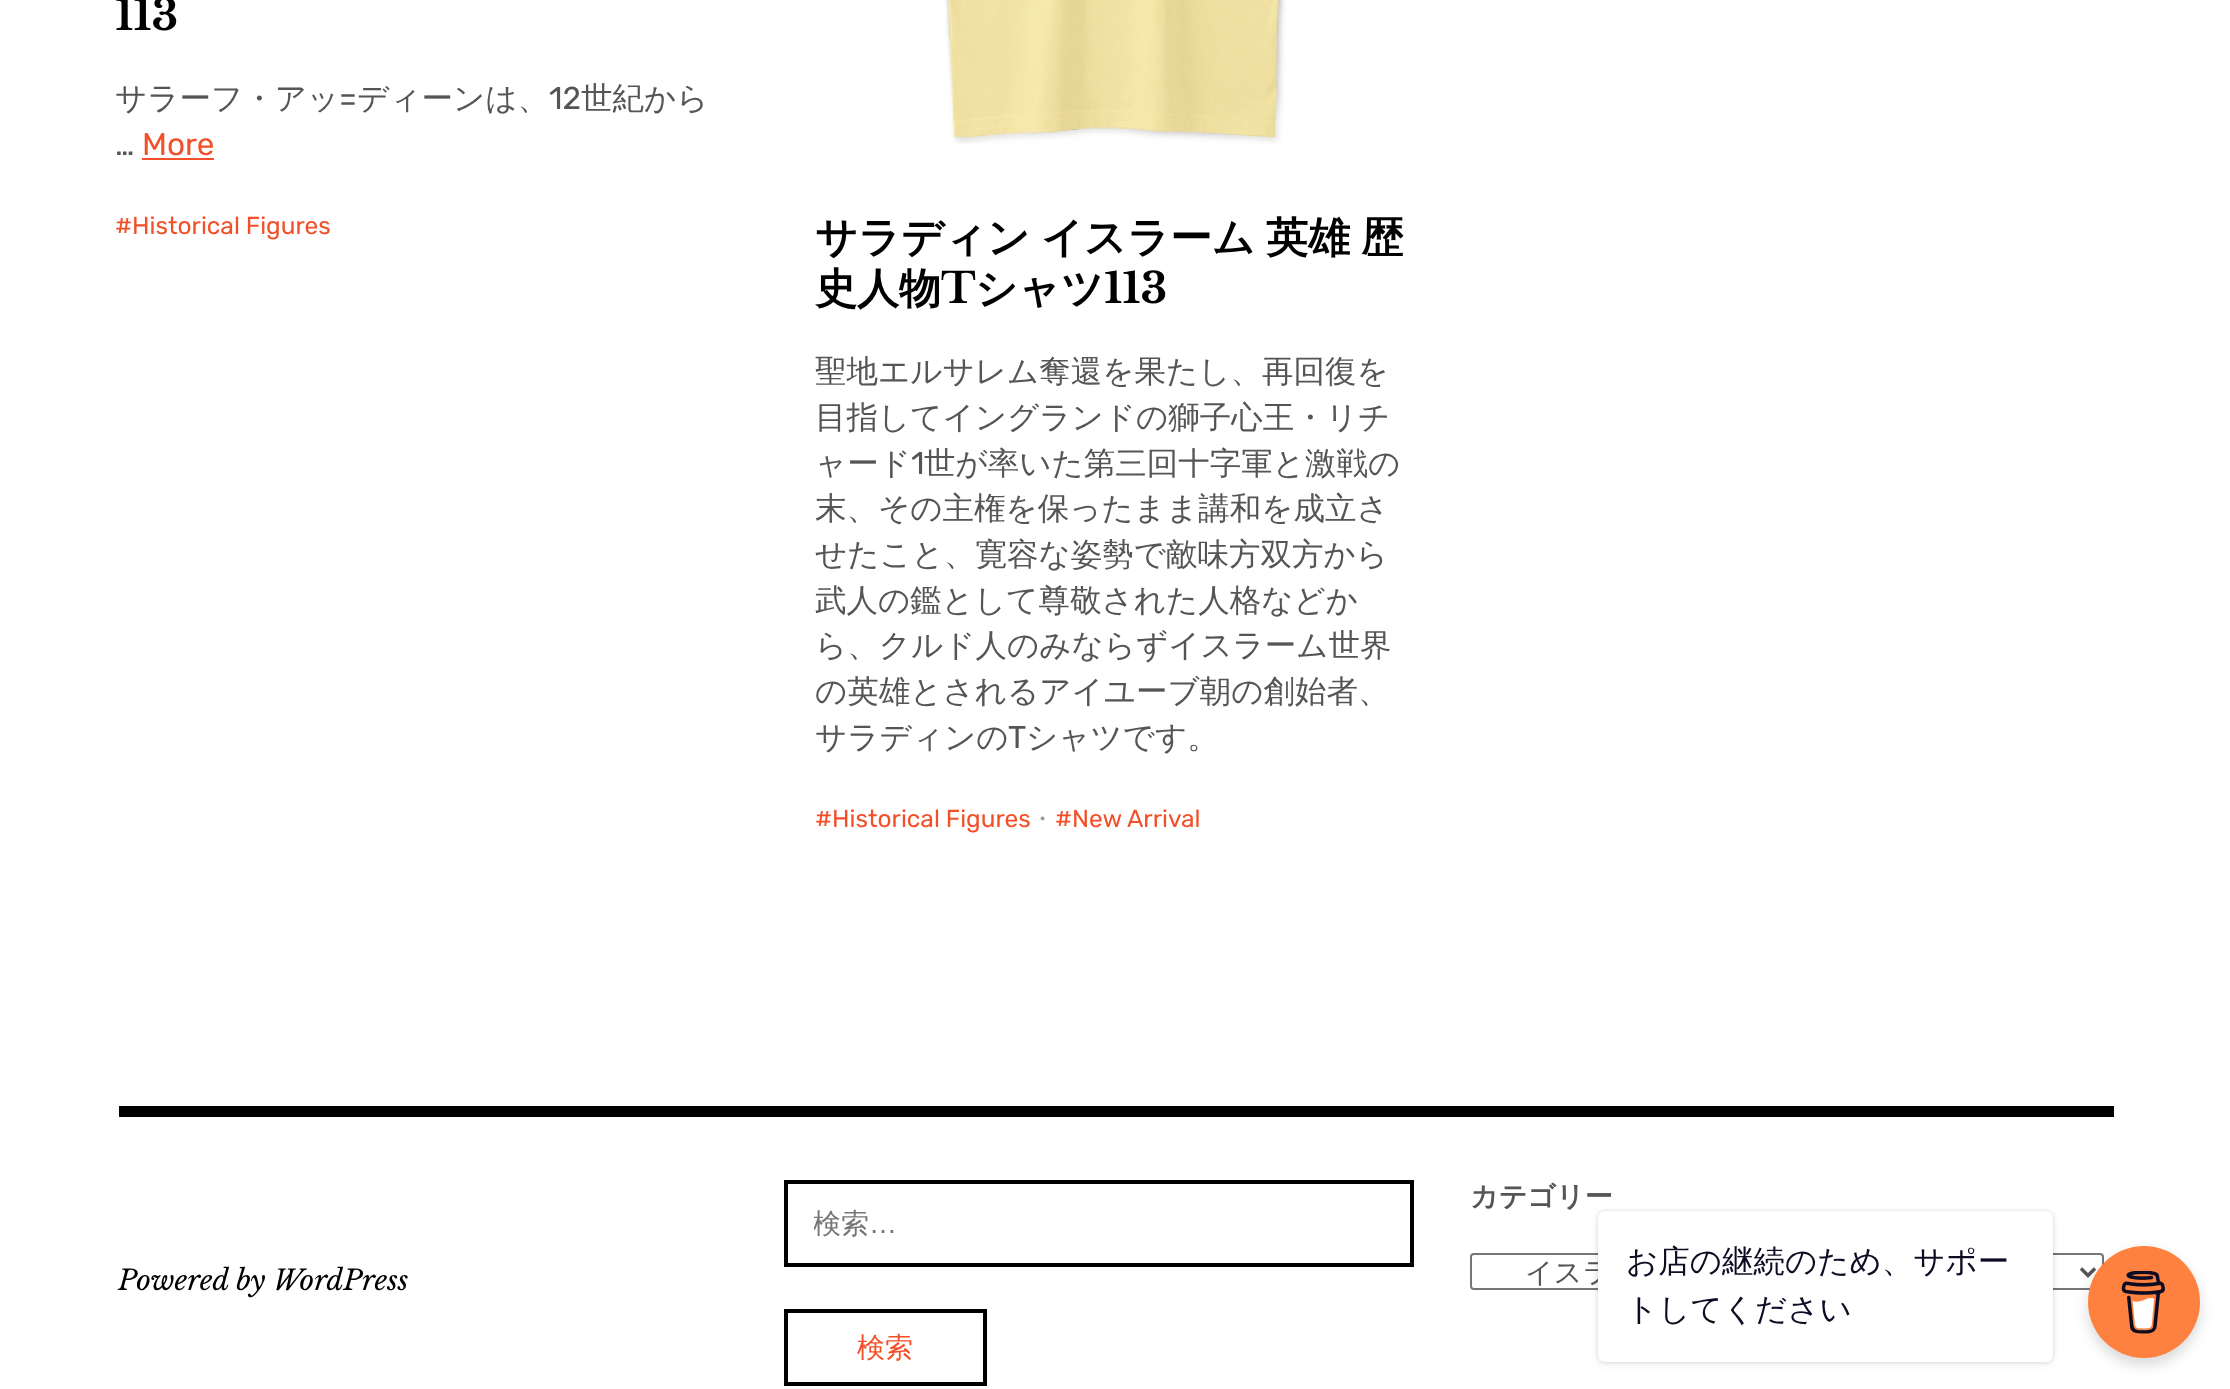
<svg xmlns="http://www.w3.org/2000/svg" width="2230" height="1389">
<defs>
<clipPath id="clip1"><rect x="814" y="1206" width="563" height="37"/></clipPath>
</defs>
<rect width="100%" height="100%" fill="#fff"/>
<text x="115" y="30" style="font-family:Libre Baskerville;font-size:42px;font-weight:bold;fill:#000">113</text>
<text x="115" y="109" style="font-family:WenQuanYi Zen Hei;font-size:31.5px;font-weight:500;fill:#555">サラーフ・アッ</text>
<text x="339" y="109" style="font-family:Rubik;font-size:31.5px;fill:#555">=</text>
<text x="357" y="109" style="font-family:WenQuanYi Zen Hei;font-size:31.5px;font-weight:500;fill:#555">ディーンは、</text>
<text x="549" y="109" style="font-family:Rubik;font-size:31.5px;fill:#555">12</text>
<text x="581" y="109" style="font-family:WenQuanYi Zen Hei;font-size:31.5px;font-weight:500;fill:#555">世紀から</text>
<text x="115" y="155" style="font-family:Rubik;font-size:31.5px;fill:#555">…</text>
<text x="142" y="155" style="font-family:Rubik;font-size:31.5px;fill:#f35029">More</text>
<rect x="142" y="158" width="72" height="2" fill="#f35029"/>
<text x="115" y="234" style="font-family:Rubik;font-size:24.5px;fill:#f35029">#Historical Figures</text>
<image x="945" y="0" width="341" height="144" href="media/1.png"/>
<text x="815" y="252" word-spacing="-1.5" style="font-family:WenQuanYi Zen Hei;font-size:42px;font-weight:bold;fill:#000">サラディン イスラーム 英雄 歴</text>
<text x="815" y="303" style="font-family:WenQuanYi Zen Hei;font-size:42px;font-weight:bold;fill:#000">史人物</text>
<text x="941" y="303" style="font-family:Libre Baskerville;font-size:42px;font-weight:bold;fill:#000">T</text>
<text x="975" y="303" style="font-family:WenQuanYi Zen Hei;font-size:42px;font-weight:bold;fill:#000">シャツ</text>
<text x="1104" y="303" style="font-family:Libre Baskerville;font-size:42px;font-weight:bold;fill:#000">113</text>
<text x="815" y="382" style="font-family:WenQuanYi Zen Hei;font-size:31.5px;font-weight:500;fill:#555">聖地エルサレム奪還を果たし、再回復を</text>
<text x="815" y="428" style="font-family:WenQuanYi Zen Hei;font-size:31.5px;font-weight:500;fill:#555">目指してイングランドの獅子心王・リチ</text>
<text x="815" y="474" style="font-family:WenQuanYi Zen Hei;font-size:31.5px;font-weight:500;fill:#555">ャード</text>
<text x="911" y="474" style="font-family:Rubik;font-size:31.5px;fill:#555">1</text>
<text x="924" y="474" style="font-family:WenQuanYi Zen Hei;font-size:31.5px;font-weight:500;fill:#555">世が率いた第三回十字軍と激戦の</text>
<text x="815" y="519" style="font-family:WenQuanYi Zen Hei;font-size:31.5px;font-weight:500;fill:#555">末、その主権を保ったまま講和を成立さ</text>
<text x="815" y="565" style="font-family:WenQuanYi Zen Hei;font-size:31.5px;font-weight:500;fill:#555">せたこと、寛容な姿勢で敵味方双方から</text>
<text x="815" y="611" style="font-family:WenQuanYi Zen Hei;font-size:31.5px;font-weight:500;fill:#555">武人の鑑として尊敬された人格などか</text>
<text x="815" y="656" style="font-family:WenQuanYi Zen Hei;font-size:31.5px;font-weight:500;fill:#555">ら、クルド人のみならずイスラーム世界</text>
<text x="815" y="702" style="font-family:WenQuanYi Zen Hei;font-size:31.5px;font-weight:500;fill:#555">の英雄とされるアイユーブ朝の創始者、</text>
<text x="815" y="748" style="font-family:WenQuanYi Zen Hei;font-size:31.5px;font-weight:500;fill:#555">サラディンの</text>
<text x="1008" y="748" style="font-family:Rubik;font-size:31.5px;fill:#555">T</text>
<text x="1026" y="748" style="font-family:WenQuanYi Zen Hei;font-size:31.5px;font-weight:500;fill:#555">シャツです。</text>
<text x="815" y="827" style="font-family:Rubik;font-size:24.5px;fill:#f35029">#Historical Figures</text>
<text x="1030" y="827" style="font-family:WenQuanYi Zen Hei;font-size:24.5px;font-weight:500;fill:#999">・</text>
<text x="1055" y="827" style="font-family:Rubik;font-size:24.5px;fill:#f35029">#New Arrival</text>
<rect x="119" y="1106" width="1995" height="11" fill="#000"/>
<text x="118" y="1290" style="font-family:Libre Baskerville;font-size:28px;font-style:italic;fill:#000">Powered by WordPress</text>
<rect x="786" y="1182" width="626" height="83" fill="none" stroke="#000" stroke-width="4"/>
<g clip-path="url(#clip1)">
<text x="813" y="1233" style="font-family:WenQuanYi Zen Hei;font-size:28px;font-weight:500;fill:#757575">検索</text>
</g>
<text x="869" y="1233" style="font-family:Liberation Sans;font-size:28px;fill:#757575">…</text>
<rect x="786" y="1311" width="199" height="73" fill="none" stroke="#000" stroke-width="4"/>
<text x="857" y="1357" style="font-family:WenQuanYi Zen Hei;font-size:28px;font-weight:500;fill:#f35029">検索</text>
<text x="1470" y="1206" style="font-family:WenQuanYi Zen Hei;font-size:28px;font-weight:bold;fill:#555">カテゴリー</text>
<rect x="1471" y="1254" width="632" height="35" rx="3" fill="none" stroke="#767676" stroke-width="2"/>
<path d="M2081 1268.5l7 7l7-7" fill="none" stroke="#555" stroke-width="3.5"/>
<text x="1525" y="1282" style="font-family:WenQuanYi Zen Hei;font-size:28px;font-weight:500;fill:#555">イスラ</text>
<rect x="1598" y="1211" width="455" height="151" rx="7" fill="#00000026" filter="blur(2px)"/>
<rect x="1598" y="1215" width="455" height="150" rx="7" fill="#0000000d" filter="blur(4.5px)"/>
<rect x="1598" y="1211" width="455" height="151" rx="7" fill="#fff"/>
<text x="1626" y="1272" style="font-family:WenQuanYi Zen Hei;font-size:31.5px;font-weight:500;fill:#0d0c22">お店の継続のため、サポー</text>
<text x="1626" y="1320" style="font-family:WenQuanYi Zen Hei;font-size:31.5px;font-weight:500;fill:#0d0c22">トしてください</text>
<rect x="2088" y="1253" width="112" height="112" rx="56" fill="#00000026" filter="blur(7px)"/>
<circle cx="2144" cy="1302" r="56" fill="#ff813f"/>
<image x="2121" y="1271" width="44" height="63" href="media/2.png"/>
</svg>
